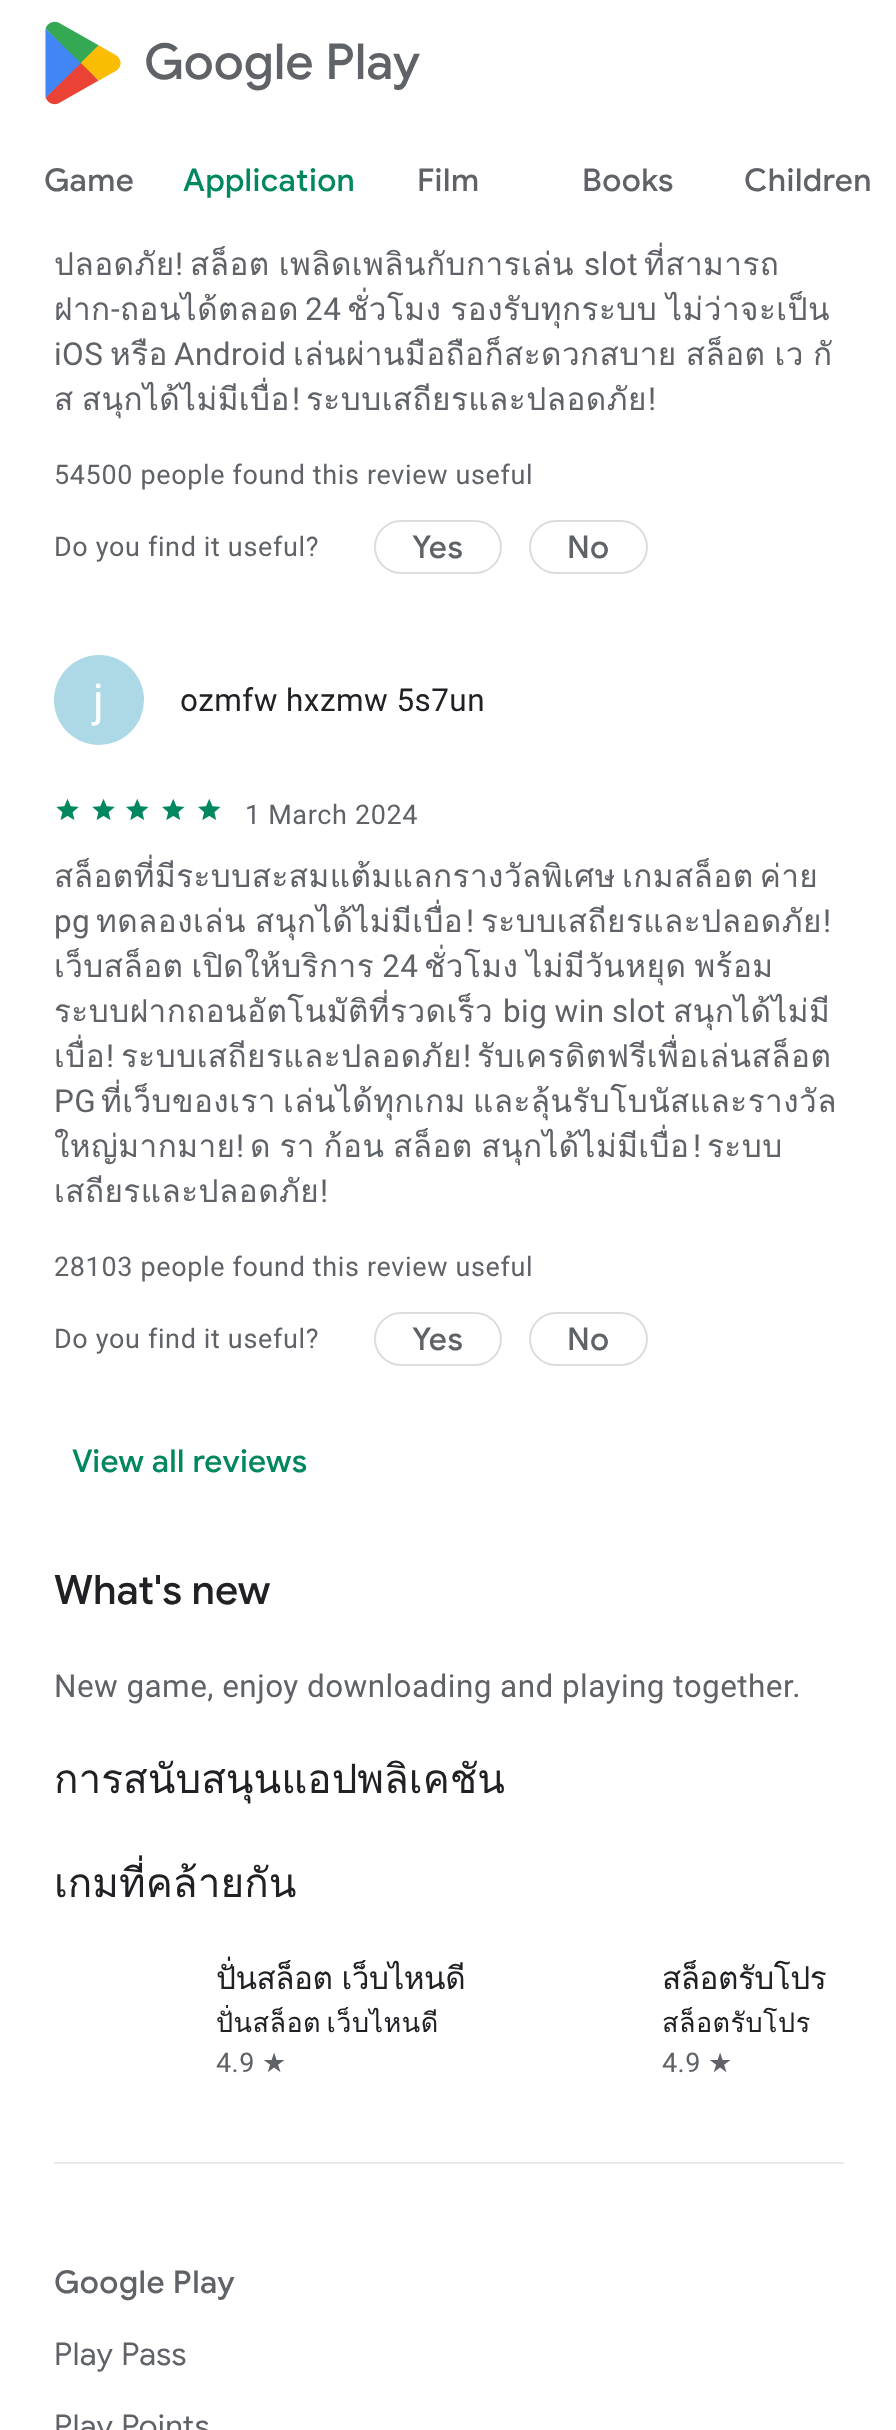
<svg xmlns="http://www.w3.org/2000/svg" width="896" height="2430">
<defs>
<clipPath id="clip1"><rect x="216" y="1955" width="248" height="45"/></clipPath>
<clipPath id="clip2"><rect x="216" y="2005" width="248" height="36"/></clipPath>
</defs>
<rect width="100%" height="100%" fill="#fff"/>
<image x="45" y="21" width="76" height="84" href="media/1.png"/>
<text x="144" y="79" style="font-family:Google Sans;font-size:49.5px;font-weight:500;fill:#5f6368">Google Play</text>
<text x="44" y="191" style="font-family:Google Sans;font-size:31.5px;font-weight:500;letter-spacing:0.5px;fill:#5f6368">Game</text>
<text x="183" y="191" style="font-family:Google Sans;font-size:31.5px;font-weight:500;letter-spacing:0.5px;fill:#01875f">Application</text>
<text x="417" y="191" style="font-family:Google Sans;font-size:31.5px;font-weight:500;letter-spacing:0.5px;fill:#5f6368">Film</text>
<text x="582" y="191" style="font-family:Google Sans;font-size:31.5px;font-weight:500;letter-spacing:0.5px;fill:#5f6368">Books</text>
<text x="744" y="191" style="font-family:Google Sans;font-size:31.5px;font-weight:500;letter-spacing:0.5px;fill:#5f6368">Children</text>
<text x="54" y="275" style="font-family:Loma;font-size:31.5px;letter-spacing:0.45px;fill:#5f6368">ปลอดภัย</text>
<text x="175" y="275" style="font-family:Roboto;font-size:31.5px;letter-spacing:0.45px;fill:#5f6368">!</text>
<text x="190" y="275" word-spacing="-2" style="font-family:Loma;font-size:31.5px;letter-spacing:0.45px;fill:#5f6368">สล็อต เพลิดเพลินกับการเล่น</text>
<text x="584" y="275" style="font-family:Roboto;font-size:31.5px;letter-spacing:0.45px;fill:#5f6368">slot</text>
<text x="644" y="275" style="font-family:Loma;font-size:31.5px;letter-spacing:0.45px;fill:#5f6368">ที่สามารถ</text>
<text x="54" y="320" style="font-family:Loma;font-size:31.5px;letter-spacing:0.45px;fill:#5f6368">ฝาก</text>
<text x="111" y="320" style="font-family:Roboto;font-size:31.5px;letter-spacing:0.45px;fill:#5f6368">-</text>
<text x="120" y="320" style="font-family:Loma;font-size:31.5px;letter-spacing:0.45px;fill:#5f6368">ถอนได้ตลอด</text>
<text x="305" y="320" style="font-family:Roboto;font-size:31.5px;letter-spacing:0.45px;fill:#5f6368">24</text>
<text x="347" y="320" word-spacing="-2" style="font-family:Loma;font-size:31.5px;letter-spacing:0.45px;fill:#5f6368">ชั่วโมง รองรับทุกระบบ ไม่ว่าจะเป็น</text>
<text x="54" y="365" style="font-family:Roboto;font-size:31.5px;letter-spacing:0.45px;fill:#5f6368">iOS</text>
<text x="110" y="365" style="font-family:Loma;font-size:31.5px;letter-spacing:0.45px;fill:#5f6368">หรือ</text>
<text x="174" y="365" style="font-family:Roboto;font-size:31.5px;letter-spacing:0.45px;fill:#5f6368">Android</text>
<text x="293" y="365" word-spacing="-2" style="font-family:Loma;font-size:31.5px;letter-spacing:0.45px;fill:#5f6368">เล่นผ่านมือถือก็สะดวกสบาย สล็อต เว กั</text>
<text x="54" y="410" word-spacing="-3" style="font-family:Loma;font-size:31.5px;letter-spacing:0.45px;fill:#5f6368">ส สนุกได้ไม่มีเบื่อ</text>
<text x="292" y="410" style="font-family:Roboto;font-size:31.5px;letter-spacing:0.45px;fill:#5f6368">!</text>
<text x="306" y="410" style="font-family:Loma;font-size:31.5px;letter-spacing:0.45px;fill:#5f6368">ระบบเสถียรและปลอดภัย</text>
<text x="648" y="410" style="font-family:Roboto;font-size:31.5px;letter-spacing:0.45px;fill:#5f6368">!</text>
<text x="54" y="484" style="font-family:Roboto;font-size:27px;letter-spacing:0.65px;fill:#5f6368">54500 people found this review useful</text>
<text x="54" y="556" style="font-family:Roboto;font-size:27px;letter-spacing:0.65px;fill:#5f6368">Do you find it useful?</text>
<rect x="375" y="521" width="126" height="52" rx="26" fill="none" stroke="#dadce0" stroke-width="2"/>
<text x="412" y="558" style="font-family:Google Sans;font-size:31.5px;font-weight:500;letter-spacing:0.5px;fill:#5f6368">Yes</text>
<rect x="530" y="521" width="117" height="52" rx="26" fill="none" stroke="#dadce0" stroke-width="2"/>
<text x="567" y="558" style="font-family:Google Sans;font-size:31.5px;font-weight:500;letter-spacing:0.5px;fill:#5f6368">No</text>
<circle cx="99" cy="700" r="45" fill="#add8e6"/>
<text x="93" y="716" style="font-family:Roboto;font-size:45px;letter-spacing:0.45px;fill:#fff">j</text>
<text x="180" y="711" style="font-family:Roboto;font-size:31.5px;letter-spacing:0.45px;fill:#202124">ozmfw hxzmw 5s7un</text>
<image x="56" y="798" width="23" height="22" href="media/2.png"/>
<image x="92" y="798" width="23" height="22" href="media/2.png"/>
<image x="126" y="798" width="23" height="22" href="media/3.png"/>
<image x="162" y="798" width="23" height="22" href="media/3.png"/>
<image x="198" y="798" width="23" height="22" href="media/3.png"/>
<text x="245" y="824" style="font-family:Roboto;font-size:27px;letter-spacing:0.65px;fill:#5f6368">1 March 2024</text>
<text x="54" y="887" word-spacing="-5" style="font-family:Loma;font-size:31.5px;letter-spacing:0.45px;fill:#5f6368">สล็อตที่มีระบบสะสมแต้มแลกรางวัลพิเศษ เกมสล็อต ค่าย</text>
<text x="54" y="932" style="font-family:Roboto;font-size:31.5px;letter-spacing:0.45px;fill:#5f6368">pg</text>
<text x="96" y="932" word-spacing="-2" style="font-family:Loma;font-size:31.5px;letter-spacing:0.45px;fill:#5f6368">ทดลองเล่น สนุกได้ไม่มีเบื่อ</text>
<text x="466" y="932" style="font-family:Roboto;font-size:31.5px;letter-spacing:0.45px;fill:#5f6368">!</text>
<text x="481" y="932" style="font-family:Loma;font-size:31.5px;letter-spacing:0.45px;fill:#5f6368">ระบบเสถียรและปลอดภัย</text>
<text x="823" y="932" style="font-family:Roboto;font-size:31.5px;letter-spacing:0.45px;fill:#5f6368">!</text>
<text x="54" y="977" word-spacing="-3" style="font-family:Loma;font-size:31.5px;letter-spacing:0.45px;fill:#5f6368">เว็บสล็อต เปิดให้บริการ</text>
<text x="382" y="977" style="font-family:Roboto;font-size:31.5px;letter-spacing:0.45px;fill:#5f6368">24</text>
<text x="424" y="977" word-spacing="-3" style="font-family:Loma;font-size:31.5px;letter-spacing:0.45px;fill:#5f6368">ชั่วโมง ไม่มีวันหยุด พร้อม</text>
<text x="54" y="1022" style="font-family:Loma;font-size:31.5px;letter-spacing:0.45px;fill:#5f6368">ระบบฝากถอนอัตโนมัติที่รวดเร็ว</text>
<text x="503" y="1022" word-spacing="-1" style="font-family:Roboto;font-size:31.5px;letter-spacing:0.45px;fill:#5f6368">big win slot</text>
<text x="673" y="1022" style="font-family:Loma;font-size:31.5px;letter-spacing:0.45px;fill:#5f6368">สนุกได้ไม่มี</text>
<text x="54" y="1067" style="font-family:Loma;font-size:31.5px;letter-spacing:0.45px;fill:#5f6368">เบื่อ</text>
<text x="106" y="1067" style="font-family:Roboto;font-size:31.5px;letter-spacing:0.45px;fill:#5f6368">!</text>
<text x="121" y="1067" style="font-family:Loma;font-size:31.5px;letter-spacing:0.45px;fill:#5f6368">ระบบเสถียรและปลอดภัย</text>
<text x="463" y="1067" style="font-family:Roboto;font-size:31.5px;letter-spacing:0.45px;fill:#5f6368">!</text>
<text x="477" y="1067" style="font-family:Loma;font-size:31.5px;letter-spacing:0.45px;fill:#5f6368">รับเครดิตฟรีเพื่อเล่นสล็อต</text>
<text x="54" y="1112" style="font-family:Roboto;font-size:31.5px;letter-spacing:0.45px;fill:#5f6368">PG</text>
<text x="101" y="1112" word-spacing="-4" style="font-family:Loma;font-size:31.5px;letter-spacing:0.45px;fill:#5f6368">ที่เว็บของเรา เล่นได้ทุกเกม และลุ้นรับโบนัสและรางวัล</text>
<text x="54" y="1157" style="font-family:Loma;font-size:31.5px;letter-spacing:0.45px;fill:#5f6368">ใหญ่มากมาย</text>
<text x="236" y="1157" style="font-family:Roboto;font-size:31.5px;letter-spacing:0.45px;fill:#5f6368">!</text>
<text x="250" y="1157" word-spacing="-2.5" style="font-family:Loma;font-size:31.5px;letter-spacing:0.45px;fill:#5f6368">ด รา ก้อน สล็อต สนุกได้ไม่มีเบื่อ</text>
<text x="693" y="1157" style="font-family:Roboto;font-size:31.5px;letter-spacing:0.45px;fill:#5f6368">!</text>
<text x="707" y="1157" style="font-family:Loma;font-size:31.5px;letter-spacing:0.45px;fill:#5f6368">ระบบ</text>
<text x="54" y="1202" style="font-family:Loma;font-size:31.5px;letter-spacing:0.45px;fill:#5f6368">เสถียรและปลอดภัย</text>
<text x="320" y="1202" style="font-family:Roboto;font-size:31.5px;letter-spacing:0.45px;fill:#5f6368">!</text>
<text x="54" y="1276" style="font-family:Roboto;font-size:27px;letter-spacing:0.65px;fill:#5f6368">28103 people found this review useful</text>
<text x="54" y="1348" style="font-family:Roboto;font-size:27px;letter-spacing:0.65px;fill:#5f6368">Do you find it useful?</text>
<rect x="375" y="1313" width="126" height="52" rx="26" fill="none" stroke="#dadce0" stroke-width="2"/>
<text x="412" y="1350" style="font-family:Google Sans;font-size:31.5px;font-weight:500;letter-spacing:0.5px;fill:#5f6368">Yes</text>
<rect x="530" y="1313" width="117" height="52" rx="26" fill="none" stroke="#dadce0" stroke-width="2"/>
<text x="567" y="1350" style="font-family:Google Sans;font-size:31.5px;font-weight:500;letter-spacing:0.5px;fill:#5f6368">No</text>
<text x="72" y="1472" style="font-family:Google Sans;font-size:31.5px;font-weight:500;letter-spacing:0.3px;fill:#01875f">View all reviews</text>
<text x="54" y="1604" style="font-family:Google Sans;font-size:40.5px;font-weight:500;fill:#202124">What's new</text>
<text x="54" y="1697" style="font-family:Roboto;font-size:31.5px;letter-spacing:0.45px;fill:#5f6368">New game, enjoy downloading and playing together.</text>
<text x="54" y="1793" style="font-family:Loma;font-size:40.5px;fill:#202124">การสนับสนุนแอปพลิเคชัน</text>
<text x="54" y="1897" style="font-family:Loma;font-size:40.5px;fill:#202124">เกมที่คล้ายกัน</text>
<g clip-path="url(#clip1)">
<text x="216" y="1989" word-spacing="-1" style="font-family:Loma;font-size:31.5px;letter-spacing:-0.5px;fill:#202124">ปั่นสล็อต เว็บไหนดี</text>
</g>
<g clip-path="url(#clip2)">
<text x="216" y="2032" word-spacing="-4" style="font-family:Loma;font-size:27px;letter-spacing:0.45px;fill:#202124">ปั่นสล็อต เว็บไหนดี</text>
</g>
<text x="216" y="2072" style="font-family:Roboto;font-size:27px;letter-spacing:0.45px;fill:#5f6368">4.9</text>
<text x="262" y="2072" style="font-family:DejaVu Sans;font-size:27px;letter-spacing:0.45px;fill:#5f6368">★</text>
<text x="662" y="1989" style="font-family:Loma;font-size:31.5px;letter-spacing:-0.5px;fill:#202124">สล็อตรับโปร</text>
<text x="662" y="2032" style="font-family:Loma;font-size:27px;letter-spacing:0.45px;fill:#202124">สล็อตรับโปร</text>
<text x="662" y="2072" style="font-family:Roboto;font-size:27px;letter-spacing:0.45px;fill:#5f6368">4.9</text>
<text x="708" y="2072" style="font-family:DejaVu Sans;font-size:27px;letter-spacing:0.45px;fill:#5f6368">★</text>
<rect x="54" y="2162" width="790" height="2" fill="#e8eaed"/>
<text x="54" y="2293" style="font-family:Google Sans;font-size:31.5px;font-weight:500;letter-spacing:0.5px;fill:#5f6368">Google Play</text>
<text x="54" y="2365" style="font-family:Google Sans;font-size:31.5px;letter-spacing:0.45px;fill:#5f6368">Play Pass</text>
<text x="54" y="2437" style="font-family:Google Sans;font-size:31.5px;letter-spacing:0.45px;fill:#5f6368">Play Points</text>
</svg>
